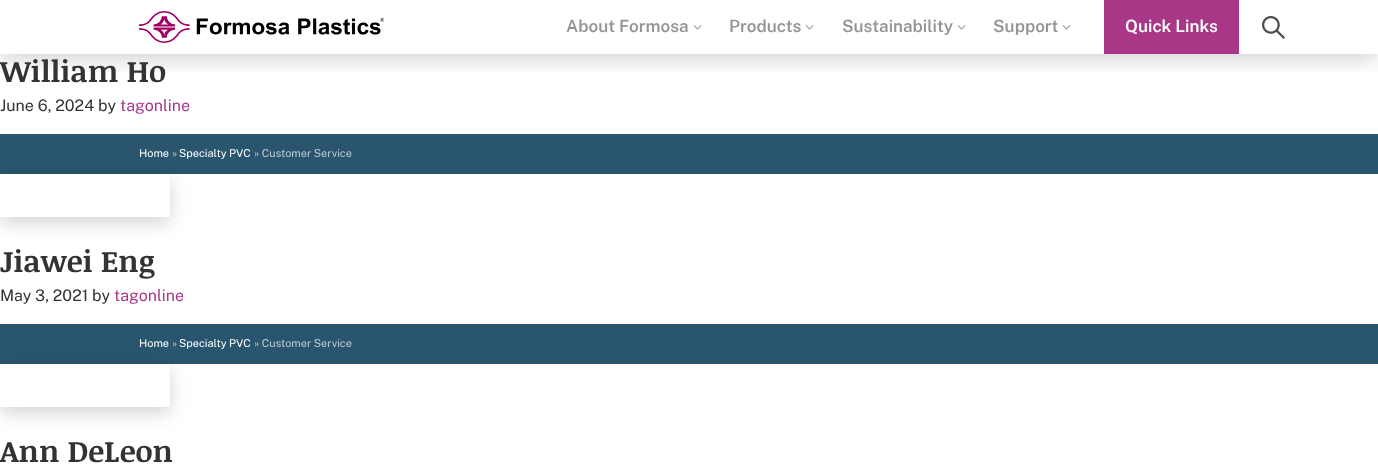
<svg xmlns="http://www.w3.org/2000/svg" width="1378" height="474">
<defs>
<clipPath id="clip1"><rect x="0" y="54" width="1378" height="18"/></clipPath>
<clipPath id="clip2"><path d="M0 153h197v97h-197zm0 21h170v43h-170z" clip-rule="evenodd"/></clipPath>
<clipPath id="clip3"><path d="M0 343h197v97h-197zm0 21h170v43h-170z" clip-rule="evenodd"/></clipPath>
</defs>
<rect width="100%" height="100%" fill="#fff"/>
<g clip-path="url(#clip1)">
<rect y="6" width="1378" height="54" fill="#0000002b" filter="blur(10.5px)"/>
</g>
<image x="139" y="11" width="245" height="32" href="media/1.png"/>
<text x="566" y="32" style="font-family:Public Sans;font-size:17px;font-weight:600;fill:#959595">About Formosa</text>
<image x="693" y="25" width="9" height="5" href="media/2.png"/>
<text x="729" y="32" style="font-family:Public Sans;font-size:17px;font-weight:600;fill:#959595">Products</text>
<image x="805" y="25" width="9" height="5" href="media/2.png"/>
<text x="842" y="32" style="font-family:Public Sans;font-size:17px;font-weight:600;fill:#959595">Sustainability</text>
<image x="957" y="25" width="9" height="5" href="media/2.png"/>
<text x="993" y="32" style="font-family:Public Sans;font-size:17px;font-weight:600;fill:#959595">Support</text>
<image x="1062" y="25" width="9" height="5" href="media/2.png"/>
<rect x="1104" width="135" height="54" fill="#a83887"/>
<text x="1125" y="32" style="font-family:Public Sans;font-size:17px;font-weight:600;fill:#fff">Quick Links</text>
<image x="1262" y="16" width="23" height="23" href="media/3.png"/>
<text x="0" y="82" style="font-family:Noticia Text;font-size:30px;font-weight:bold;fill:#333">William Ho</text>
<text x="0" y="111" style="font-family:Public Sans;font-size:16px;fill:#333">June 6, 2024 by</text>
<text x="120" y="111" style="font-family:Public Sans;font-size:16px;fill:#a83887">tagonline</text>
<rect y="134" width="1378" height="40" fill="#29556e"/>
<g clip-path="url(#clip2)">
<rect y="180" width="170" height="43" fill="#0000002b" filter="blur(8.5px)"/>
</g>
<text x="139" y="157" style="font-family:Public Sans;font-size:10.9px;fill:#fff">Home</text>
<text x="172" y="157" style="font-family:Public Sans;font-size:10.9px;fill:#bfccd4">»</text>
<text x="179" y="157" style="font-family:Public Sans;font-size:10.9px;fill:#fff">Specialty PVC</text>
<text x="254" y="157" style="font-family:Public Sans;font-size:10.9px;fill:#bfccd4">» Customer Service</text>
<text x="0" y="272" style="font-family:Noticia Text;font-size:30px;font-weight:bold;fill:#333">Jiawei Eng</text>
<text x="0" y="301" style="font-family:Public Sans;font-size:16px;fill:#333">May 3, 2021 by</text>
<text x="114" y="301" style="font-family:Public Sans;font-size:16px;fill:#a83887">tagonline</text>
<rect y="324" width="1378" height="40" fill="#29556e"/>
<g clip-path="url(#clip3)">
<rect y="370" width="170" height="43" fill="#0000002b" filter="blur(8.5px)"/>
</g>
<text x="139" y="347" style="font-family:Public Sans;font-size:10.9px;fill:#fff">Home</text>
<text x="172" y="347" style="font-family:Public Sans;font-size:10.9px;fill:#bfccd4">»</text>
<text x="179" y="347" style="font-family:Public Sans;font-size:10.9px;fill:#fff">Specialty PVC</text>
<text x="254" y="347" style="font-family:Public Sans;font-size:10.9px;fill:#bfccd4">» Customer Service</text>
<text x="0" y="462" style="font-family:Noticia Text;font-size:30px;font-weight:bold;fill:#333">Ann DeLeon</text>
</svg>
